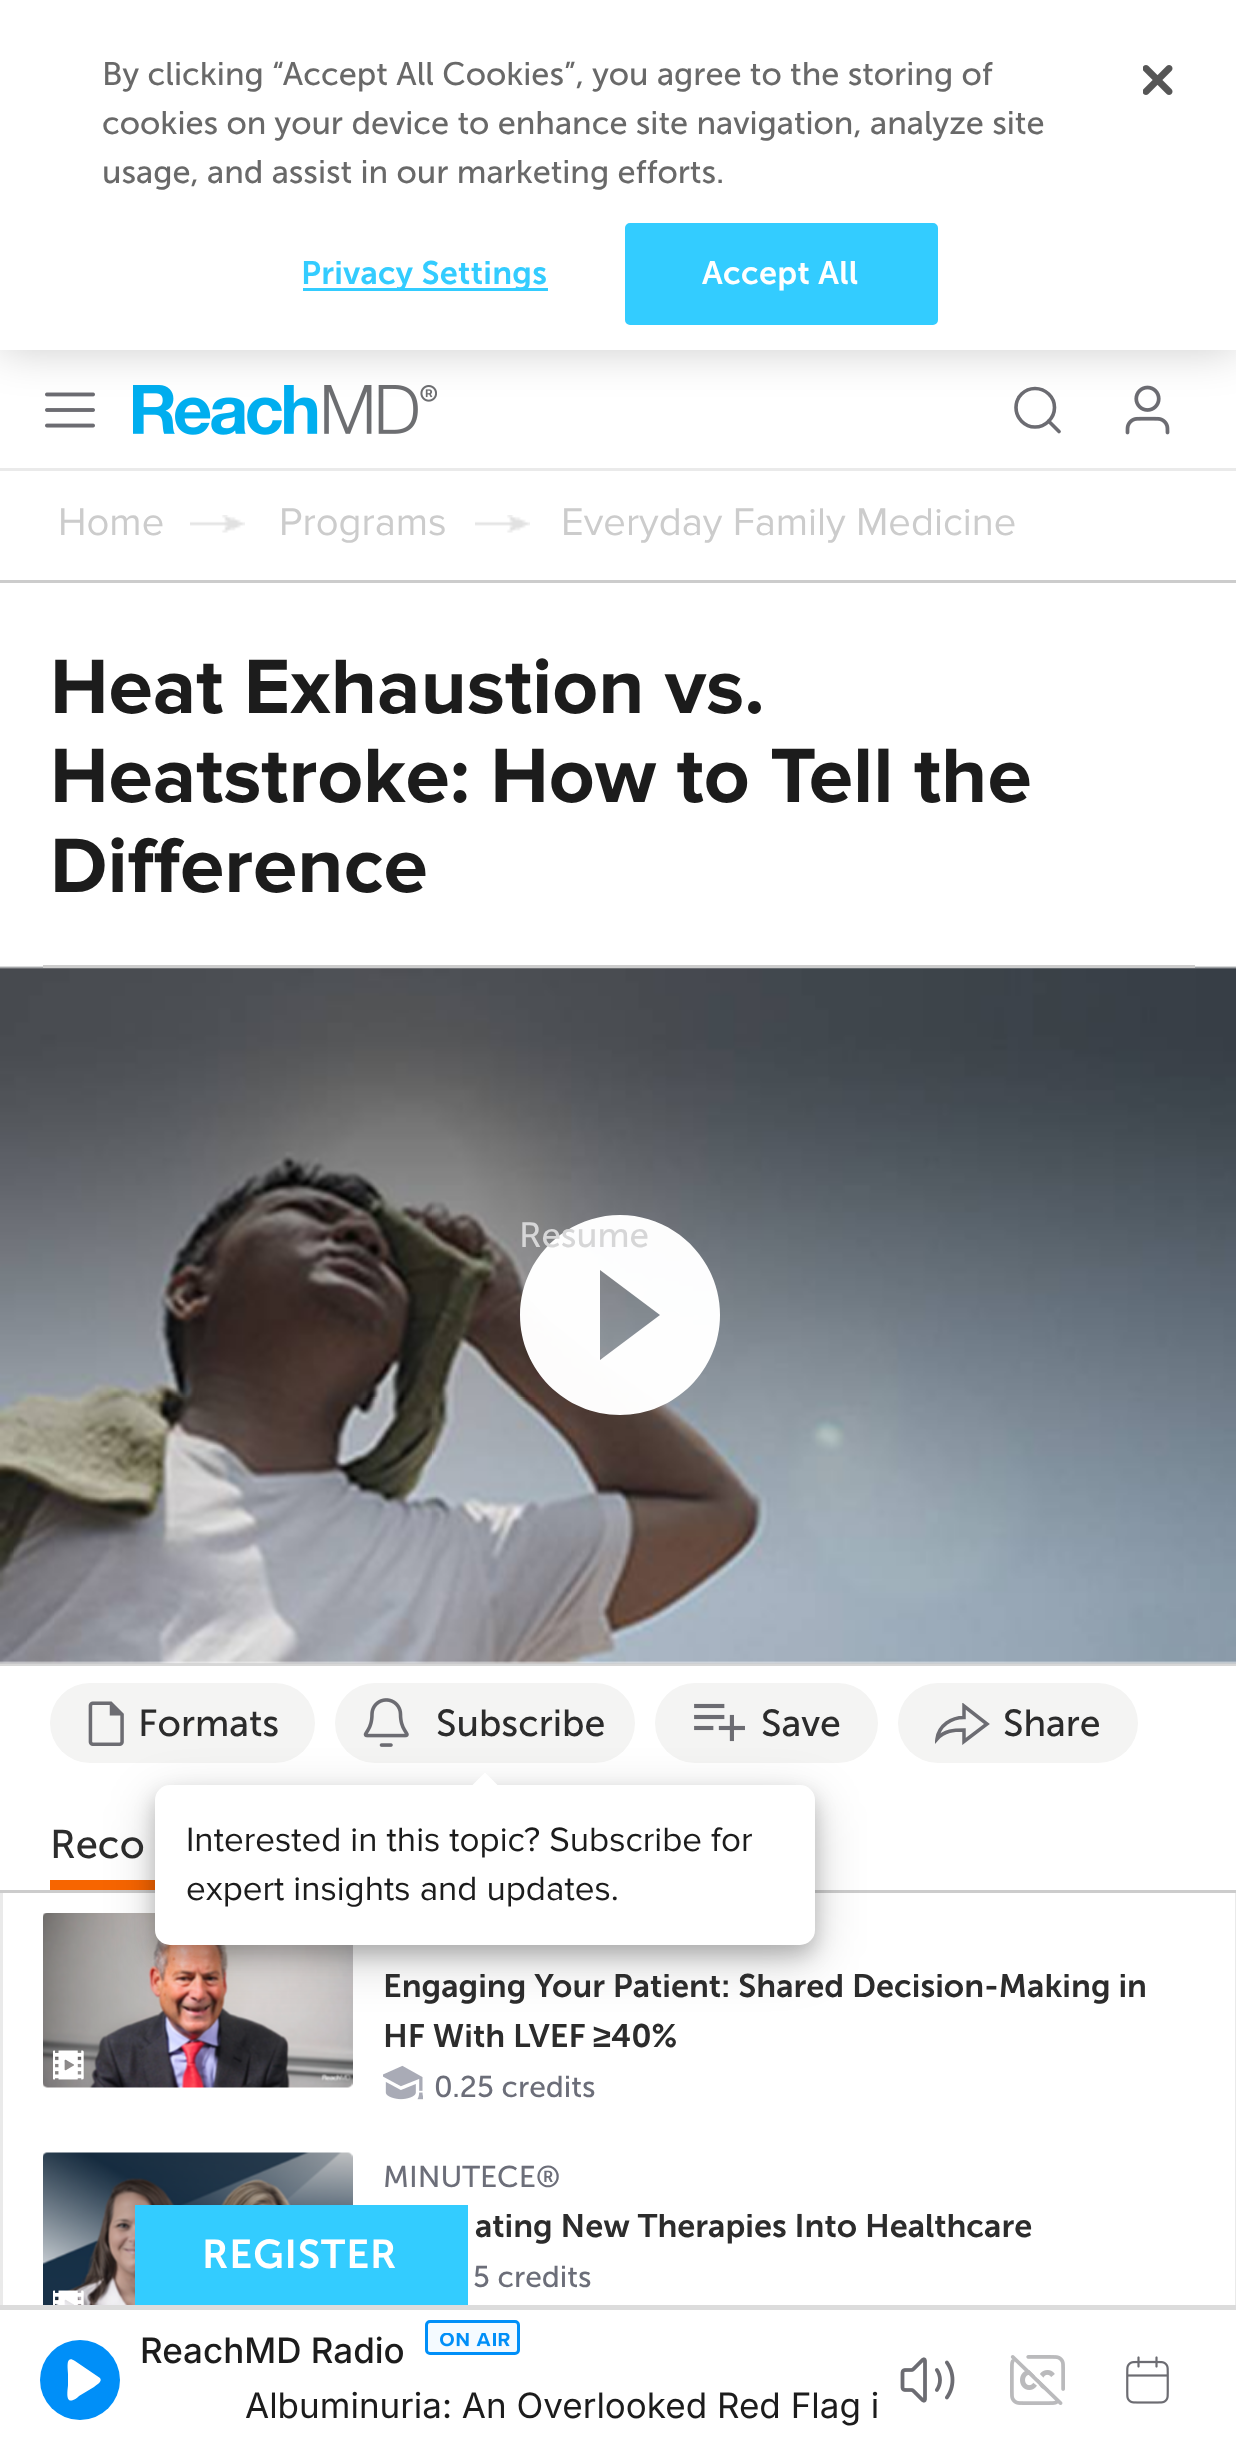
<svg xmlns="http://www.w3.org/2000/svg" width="1236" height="2448">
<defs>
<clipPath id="clip1"><rect x="935" y="1703" width="55" height="42"/></clipPath>
</defs>
<rect width="100%" height="100%" fill="#fff"/>
<image x="45" y="392" width="50" height="36" href="media/2.png"/>
<image x="133" y="385" width="304" height="50" href="media/3.png"/>
<path d="M1035 427c10.5 0 19.5-9 19.5-19.5c0-10.5-9-19-19.5-19c-10.5 0-19 8.5-19 19c0 10.5 8.5 19.5 19 19.5zm24 4.5l-10.5-10.5" fill="none" stroke="#6c6c72" stroke-width="3.6" stroke-linecap="round" stroke-linejoin="round"/>
<image x="1125" y="385" width="45" height="50" href="media/4.png"/>
<rect width="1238" height="350" fill="#00000033" filter="blur(22.5px)"/>
<rect width="1236" height="350" fill="#fff"/>
<text x="102" y="85" style="font-family:Museo Sans;font-size:32.5px;fill:#696969">By clicking “Accept All Cookies”, you agree to the storing of</text>
<text x="102" y="134" style="font-family:Museo Sans;font-size:32.5px;fill:#696969">cookies on your device to enhance site navigation, analyze site</text>
<text x="102" y="183" style="font-family:Museo Sans;font-size:32.5px;fill:#696969">usage, and assist in our marketing efforts.</text>
<rect x="303" y="288" width="245" height="3" fill="#3cf"/>
<text x="301" y="284" style="font-family:Museo Sans;font-size:32.5px;font-weight:600;letter-spacing:0.3px;fill:#3cf">Privacy Settings</text>
<rect x="626.5" y="224.5" width="310" height="99" rx="3.5" fill="#3cf" stroke="#3cf" stroke-width="3"/>
<text x="702" y="284" style="font-family:Museo Sans;font-size:32.5px;font-weight:600;letter-spacing:0.3px;fill:#fff">Accept All</text>
<image x="1143" y="65" width="30" height="30" href="media/1.png"/>
<rect y="468" width="1236" height="3" fill="#eaeaea"/>
<rect y="580" width="1236" height="3" fill="#ccc"/>
<text x="58" y="535" style="font-family:Proxima Nova;font-size:40px;fill:#ccc">Home</text>
<image x="190" y="515" width="55" height="18" href="media/5.png"/>
<text x="279" y="535" style="font-family:Proxima Nova;font-size:40px;fill:#ccc">Programs</text>
<image x="475" y="515" width="55" height="18" href="media/5.png"/>
<text x="561" y="535" style="font-family:Proxima Nova;font-size:40px;fill:#ccc">Everyday Family Medicine</text>
<text x="50" y="713" style="font-family:Proxima Nova;font-size:80px;font-weight:bold;fill:#1c1c1c">Heat Exhaustion vs.</text>
<text x="50" y="802" style="font-family:Proxima Nova;font-size:80px;font-weight:bold;fill:#1c1c1c">Heatstroke: How to Tell the</text>
<text x="50" y="892" style="font-family:Proxima Nova;font-size:80px;font-weight:bold;fill:#1c1c1c">Difference</text>
<rect y="968" width="1236" height="695" fill="#f7f7f7"/>
<rect y="1663" width="1236" height="3" fill="#d7d7d7"/>
<image x="0" y="966" width="1236" height="698" href="media/6.png"/>
<rect x="43" y="965" width="1152" height="3" fill="#ccc"/>
<path d="M620 1215c-55 0-100 45-100 100c0 55 45 100 100 100c55 0 100-45 100-100c0-55-45-100-100-100zm-20 145v-90l60 45z" fill="#fffffffc" fill-rule="evenodd"/>
<text x="519" y="1247" style="font-family:Museo Sans;font-size:35px;fill:#d6d6d7">Resume</text>
<rect x="50" y="1683" width="265" height="80" rx="40" fill="#f4f4f3"/>
<image x="88" y="1701" width="36" height="45" href="media/7.png"/>
<text x="138" y="1736" style="font-family:Museo Sans;font-size:37.5px;fill:#2c2c2c">Formats</text>
<rect x="335" y="1683" width="300" height="80" rx="40" fill="#f4f4f3"/>
<image x="363" y="1698" width="46" height="49" href="media/8.png"/>
<text x="436" y="1736" style="font-family:Museo Sans;font-size:37.5px;fill:#2c2c2c">Subscribe</text>
<rect x="655" y="1683" width="223" height="80" rx="40" fill="#f4f4f3"/>
<image x="694" y="1703" width="51" height="39" href="media/9.png"/>
<rect y="1890" width="1236" height="3" fill="#ccc"/>
<rect x="50" y="1880" width="105" height="10" fill="#f76500"/>
<image x="43" y="1913" width="310" height="175" href="media/10.png"/>
<rect x="155" y="1800" width="660" height="160" rx="15" fill="#00000030" filter="blur(25px)"/>
<rect x="155" y="1795" width="660" height="160" rx="15" fill="#00000033" filter="blur(10px)"/>
<path d="M497.5 1785h-25l12.5-12.5z" fill="#fff"/>
<rect x="155" y="1785" width="660" height="160" rx="15" fill="#fff"/>
<text x="186" y="1851" style="font-family:Proxima Nova;font-size:35px;fill:#1c1c1c">Interested in this topic? Subscribe for</text>
<text x="186" y="1900" style="font-family:Proxima Nova;font-size:35px;fill:#1c1c1c">expert insights and updates.</text>
<text x="761" y="1736" style="font-family:Museo Sans;font-size:37.5px;fill:#2c2c2c">Save</text>
<rect x="898" y="1683" width="240" height="80" rx="40" fill="#f4f4f3"/>
<g clip-path="url(#clip1)">
<path d="M964 1731.5v-1.5c-10 0-19.5 .5-27 9c2-14 14.5-21.5 27-21.5v-11.5l23 18l-23 17.5z" fill="none" stroke="#6c6c72" stroke-width="3.5"/>
</g>
<text x="1003" y="1736" style="font-family:Museo Sans;font-size:37.5px;fill:#2c2c2c">Share</text>
<text x="50" y="1858" style="font-family:Museo Sans;font-size:40px;fill:#2c2c2c">Reco</text>
<rect x="1235" y="1893" width="1" height="412" fill="#eaeaea"/>
<rect y="1893" width="3" height="412" fill="#eaeaea"/>
<image x="53" y="2050" width="31" height="30" href="media/11.png"/>
<text x="383" y="1997" style="font-family:Museo Sans;font-size:32.5px;font-weight:600;fill:#2c2c2c">Engaging Your Patient: Shared Decision-Making in</text>
<text x="383" y="2047" style="font-family:Museo Sans;font-size:32.5px;font-weight:600;fill:#2c2c2c">HF With LVEF</text>
<text x="593" y="2047" style="font-family:Liberation Sans;font-size:32.5px;font-weight:bold;fill:#2c2c2c">≥</text>
<text x="611" y="2047" style="font-family:Museo Sans;font-size:32.5px;font-weight:600;fill:#2c2c2c">40%</text>
<image x="383" y="2065" width="40" height="35" href="media/12.png"/>
<text x="434" y="2097" style="font-family:Museo Sans;font-size:30px;fill:#6c6e79">0.25 credits</text>
<image x="43" y="2152" width="310" height="153" href="media/13.png"/>
<image x="53" y="2290" width="31" height="15" href="media/14.png"/>
<text x="383" y="2187" style="font-family:Museo Sans;font-size:30px;fill:#6c6e79">MINUTECE®</text>
<text x="475" y="2237" style="font-family:Museo Sans;font-size:32.5px;font-weight:600;fill:#2c2c2c">ating New Therapies Into Healthcare</text>
<text x="473" y="2287" style="font-family:Museo Sans;font-size:30px;fill:#6c6e79">5 credits</text>
<rect x="135" y="2205" width="333" height="100" fill="#3cf"/>
<text x="202" y="2268" style="font-family:Museo Sans;font-size:40px;font-weight:600;letter-spacing:1px;fill:#fff">REGISTER</text>
<rect y="2305" width="1236" height="5" fill="#dcdcdc"/>
<circle cx="80" cy="2380" r="40" fill="#008ff8"/>
<path d="M75 2361l25 17c3 4-4 7-6 9l-15 9c-2 2-7 6-10 4c-3-2-1-13-1-15v-11c0-5-3-20 7-13z" fill="#fff" fill-rule="evenodd"/>
<text x="140" y="2363" style="font-family:Inter;font-size:35px;font-weight:500;fill:#1c1c1c">ReachMD Radio</text>
<rect x="426.5" y="2321.5" width="92" height="32" rx="3.5" fill="#f4faff" stroke="#008ff8" stroke-width="3"/>
<image x="440" y="2333" width="70" height="14" href="media/15.png"/>
<text x="245" y="2418" style="font-family:Inter;font-size:35px;fill:#1c1c1c">Albuminuria: An Overlooked Red Flag i</text>
<image x="900" y="2357" width="55" height="46" href="media/16.png"/>
<image x="1010" y="2355" width="55" height="50" href="media/17.png"/>
<image x="1126" y="2356" width="43" height="48" href="media/18.png"/>
</svg>
